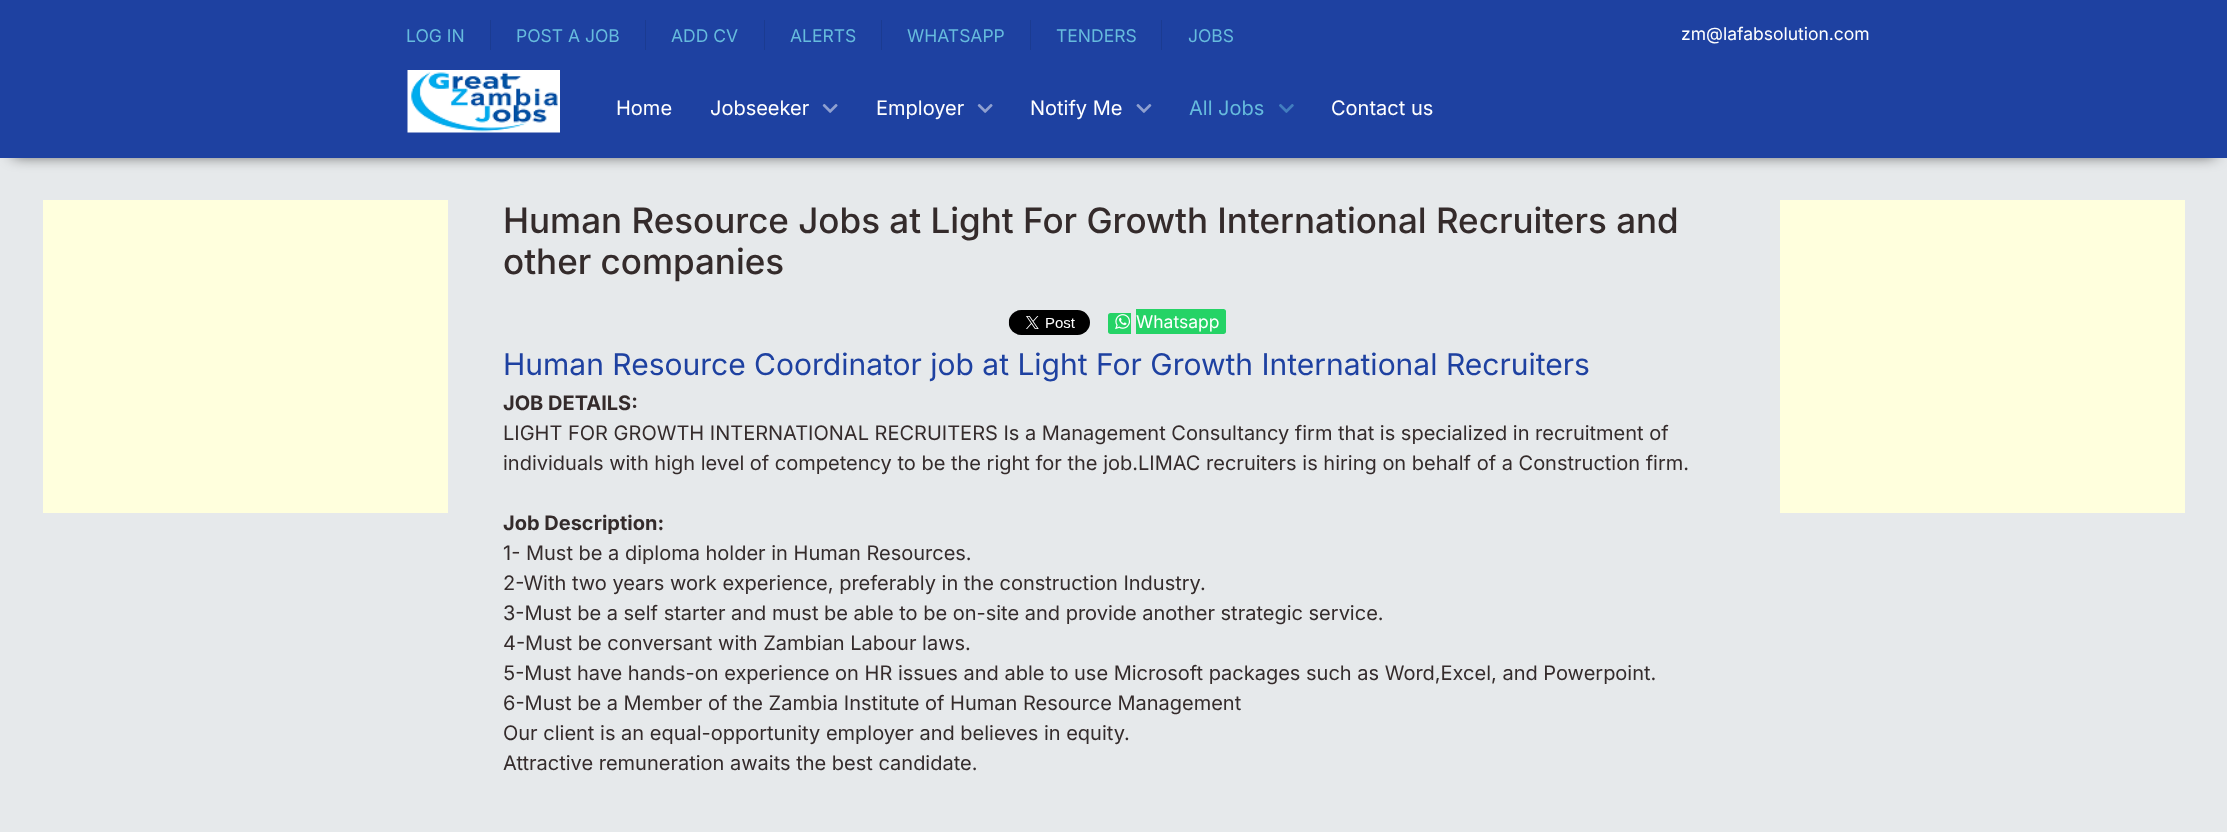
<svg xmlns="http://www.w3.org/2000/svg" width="2227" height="832">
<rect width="100%" height="100%" fill="#e6e9eb"/>
<rect width="2227" height="70" fill="#1e41a1"/>
<text x="406" y="42" style="font-family:Inter;font-size:17.5px;fill:#6bd">LOG IN</text>
<rect x="490" y="20" width="1" height="30" fill="#1b3b91"/>
<text x="516" y="42" style="font-family:Inter;font-size:17.5px;fill:#6bd">POST A JOB</text>
<rect x="645" y="20" width="1" height="30" fill="#1b3b91"/>
<text x="671" y="42" style="font-family:Inter;font-size:17.5px;fill:#6bd">ADD CV</text>
<rect x="764" y="20" width="1" height="30" fill="#1b3b91"/>
<text x="790" y="42" style="font-family:Inter;font-size:17.5px;fill:#6bd">ALERTS</text>
<rect x="881" y="20" width="1" height="30" fill="#1b3b91"/>
<text x="907" y="42" style="font-family:Inter;font-size:17.5px;fill:#6bd">WHATSAPP</text>
<rect x="1030" y="20" width="1" height="30" fill="#1b3b91"/>
<text x="1056" y="42" style="font-family:Inter;font-size:17.5px;fill:#6bd">TENDERS</text>
<rect x="1161" y="20" width="1" height="30" fill="#1b3b91"/>
<text x="1188" y="42" style="font-family:Inter;font-size:17.5px;fill:#6bd">JOBS</text>
<text x="1681" y="40" style="font-family:Inter;font-size:17.5px;fill:#fff">zm@lafabsolution.com</text>
<rect x="13" y="93" width="2202" height="62" fill="#000000bf" filter="blur(7.5px)"/>
<rect y="70" width="2227" height="88" fill="#1e41a1"/>
<image x="407" y="70" width="153" height="63" href="media/1.png"/>
<text x="616" y="115" style="font-family:Inter;font-size:20px;fill:#fff">Home</text>
<text x="710" y="115" style="font-family:Inter;font-size:20px;fill:#fff">Jobseeker</text>
<image x="822" y="104" width="16" height="9" href="media/2.png"/>
<text x="876" y="115" style="font-family:Inter;font-size:20px;fill:#fff">Employer</text>
<image x="977" y="104" width="16" height="9" href="media/2.png"/>
<text x="1030" y="115" style="font-family:Inter;font-size:20px;fill:#fff">Notify Me</text>
<image x="1136" y="104" width="16" height="9" href="media/3.png"/>
<text x="1189" y="115" style="font-family:Inter;font-size:20px;fill:#6bd">All Jobs</text>
<image x="1279" y="104" width="15" height="9" href="media/4.png"/>
<text x="1331" y="115" style="font-family:Inter;font-size:20px;fill:#fff">Contact us</text>
<rect x="43" y="200" width="405" height="313" fill="#ffd"/>
<text x="503" y="233" style="font-family:Inter;font-size:35px;font-weight:500;fill:#342b2b">Human Resource Jobs at Light For Growth International Recruiters and</text>
<text x="503" y="274" style="font-family:Inter;font-size:35px;font-weight:500;fill:#342b2b">other companies</text>
<image x="1008" y="310" width="82" height="25" href="media/5.png"/>
<path d="M1110.5 313h20.5v21h-20.5c-1.5 0-2.5-1-2.5-2.5v-16c0-1.5 1-2.5 2.5-2.5z" fill="#25d366"/>
<image x="1115" y="314" width="16" height="16" href="media/6.png"/>
<path d="M1136 309h87.5c1.5 0 2.5 1 2.5 2.5v20c0 1.5-1 2.5-2.5 2.5h-87.5z" fill="#25d366"/>
<text x="1136" y="328" style="font-family:Inter;font-size:17.5px;fill:#fff">Whatsapp</text>
<text x="503" y="375" style="font-family:Inter;font-size:30px;fill:#1e41a1">Human Resource Coordinator job at Light For Growth International Recruiters</text>
<text x="503" y="410" style="font-family:Inter;font-size:20px;font-weight:bold;fill:#342b2b">JOB DETAILS:</text>
<text x="503" y="440" style="font-family:Inter;font-size:20px;fill:#342b2b">LIGHT FOR GROWTH INTERNATIONAL RECRUITERS Is a Management Consultancy firm that is specialized in recruitment of</text>
<text x="503" y="470" style="font-family:Inter;font-size:20px;fill:#342b2b">individuals with high level of competency to be the right for the job.LIMAC recruiters is hiring on behalf of a Construction firm.</text>
<text x="503" y="530" style="font-family:Inter;font-size:20px;font-weight:bold;fill:#342b2b">Job Description:</text>
<text x="503" y="560" style="font-family:Inter;font-size:20px;fill:#342b2b">1- Must be a diploma holder in Human Resources.</text>
<text x="503" y="590" style="font-family:Inter;font-size:20px;fill:#342b2b">2-With two years work experience, preferably in the construction Industry.</text>
<text x="503" y="620" style="font-family:Inter;font-size:20px;fill:#342b2b">3-Must be a self starter and must be able to be on-site and provide another strategic service.</text>
<text x="503" y="650" style="font-family:Inter;font-size:20px;fill:#342b2b">4-Must be conversant with Zambian Labour laws.</text>
<text x="503" y="680" style="font-family:Inter;font-size:20px;fill:#342b2b">5-Must have hands-on experience on HR issues and able to use Microsoft packages such as Word,Excel, and Powerpoint.</text>
<text x="503" y="710" style="font-family:Inter;font-size:20px;fill:#342b2b">6-Must be a Member of the Zambia Institute of Human Resource Management</text>
<text x="503" y="740" style="font-family:Inter;font-size:20px;fill:#342b2b">Our client is an equal-opportunity employer and believes in equity.</text>
<text x="503" y="770" style="font-family:Inter;font-size:20px;fill:#342b2b">Attractive remuneration awaits the best candidate.</text>
<rect x="1780" y="200" width="405" height="313" fill="#ffd"/>
</svg>
